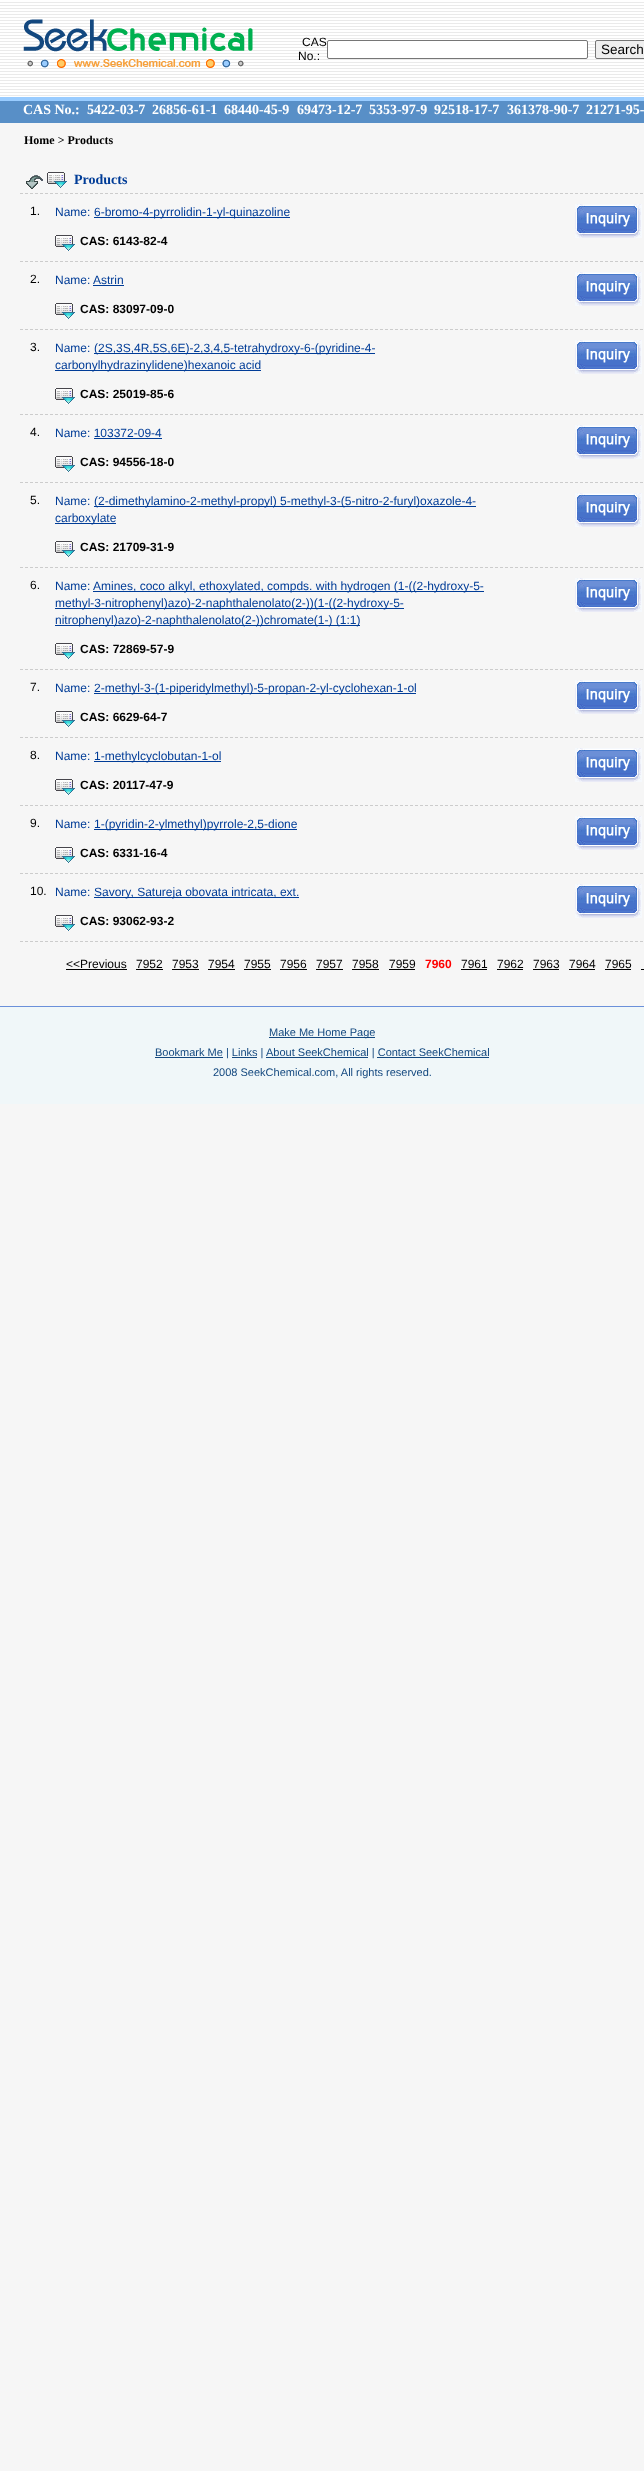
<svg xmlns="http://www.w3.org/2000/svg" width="644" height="2471">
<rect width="100%" height="100%" fill="#f6f6f6"/>
<image x="0" y="0" width="644" height="97" href="media/1.png"/>
<image x="23" y="19" width="230" height="49" href="media/2.png"/>
<text x="302" y="46" style="font-family:Liberation Sans;font-size:12px;fill:#000">CAS</text>
<text x="298" y="60" style="font-family:Liberation Sans;font-size:12px;fill:#000">No.:</text>
<rect x="327.5" y="40.5" width="260" height="18" rx="1.5" fill="#fff" stroke="#767676"/>
<rect x="595.5" y="40.5" width="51" height="18" rx="1.5" fill="#efefef" stroke="#767676"/>
<text x="601" y="54" style="font-family:Liberation Sans;font-size:13.5px;fill:#000">Search</text>
<image x="0" y="97" width="644" height="26" href="media/3.png"/>
<text x="23" y="114" style="font-family:Liberation Serif;font-size:14px;font-weight:bold;fill:#fff">CAS No.:</text>
<text x="87" y="114" style="font-family:Liberation Serif;font-size:14px;font-weight:bold;fill:#fff">5422-03-7</text>
<text x="152" y="114" style="font-family:Liberation Serif;font-size:14px;font-weight:bold;fill:#fff">26856-61-1</text>
<text x="224" y="114" style="font-family:Liberation Serif;font-size:14px;font-weight:bold;fill:#fff">68440-45-9</text>
<text x="297" y="114" style="font-family:Liberation Serif;font-size:14px;font-weight:bold;fill:#fff">69473-12-7</text>
<text x="369" y="114" style="font-family:Liberation Serif;font-size:14px;font-weight:bold;fill:#fff">5353-97-9</text>
<text x="434" y="114" style="font-family:Liberation Serif;font-size:14px;font-weight:bold;fill:#fff">92518-17-7</text>
<text x="507" y="114" style="font-family:Liberation Serif;font-size:14px;font-weight:bold;fill:#fff">361378-90-7</text>
<text x="586" y="114" style="font-family:Liberation Serif;font-size:14px;font-weight:bold;fill:#fff">21271-95-</text>
<text x="24" y="144" style="font-family:Liberation Serif;font-size:12px;font-weight:bold;fill:#000">Home &gt; Products</text>
<image x="26" y="172" width="41" height="17" href="media/4.png"/>
<text x="74" y="184" style="font-family:Liberation Serif;font-size:14px;font-weight:bold;fill:#003c97">Products</text>
<path d="M20 193.5h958" fill="none" stroke="#ccc" stroke-dasharray="3 2"/>
<path d="M20 261.5h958" fill="none" stroke="#ccc" stroke-dasharray="3 2"/>
<text x="30" y="215" style="font-family:Liberation Sans;font-size:12px;fill:#000">1.</text>
<text x="55" y="216" style="font-family:Liberation Sans;font-size:12px;fill:#003c97">Name:</text>
<rect x="94" y="217" width="196" height="1" fill="#003c97"/>
<text x="94" y="216" style="font-family:Liberation Sans;font-size:12px;fill:#003c97">6-bromo-4-pyrrolidin-1-yl-quinazoline</text>
<image x="55" y="235" width="20" height="16" href="media/5.png"/>
<text x="80" y="245" style="font-family:Liberation Sans;font-size:12px;font-weight:bold;fill:#000">CAS: 6143-82-4</text>
<image x="575" y="204" width="67" height="34" href="media/6.png"/>
<path d="M20 329.5h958" fill="none" stroke="#ccc" stroke-dasharray="3 2"/>
<text x="30" y="283" style="font-family:Liberation Sans;font-size:12px;fill:#000">2.</text>
<text x="55" y="284" style="font-family:Liberation Sans;font-size:12px;fill:#003c97">Name:</text>
<text x="93" y="284" style="font-family:Liberation Sans;font-size:12px;fill:#003c97">Astrin</text>
<rect x="93" y="285" width="31" height="1" fill="#003c97"/>
<image x="55" y="303" width="20" height="16" href="media/5.png"/>
<text x="80" y="313" style="font-family:Liberation Sans;font-size:12px;font-weight:bold;fill:#000">CAS: 83097-09-0</text>
<image x="575" y="272" width="67" height="34" href="media/6.png"/>
<path d="M20 414.5h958" fill="none" stroke="#ccc" stroke-dasharray="3 2"/>
<text x="30" y="351" style="font-family:Liberation Sans;font-size:12px;fill:#000">3.</text>
<text x="55" y="352" style="font-family:Liberation Sans;font-size:12px;fill:#003c97">Name:</text>
<rect x="94" y="353" width="281" height="1" fill="#003c97"/>
<text x="94" y="352" style="font-family:Liberation Sans;font-size:12px;fill:#003c97">(2S,3S,4R,5S,6E)-2,3,4,5-tetrahydroxy-6-(pyridine-4-</text>
<rect x="55" y="370" width="206" height="1" fill="#003c97"/>
<text x="55" y="369" style="font-family:Liberation Sans;font-size:12px;fill:#003c97">carbonylhydrazinylidene)hexanoic acid</text>
<image x="55" y="388" width="20" height="16" href="media/5.png"/>
<text x="80" y="398" style="font-family:Liberation Sans;font-size:12px;font-weight:bold;fill:#000">CAS: 25019-85-6</text>
<image x="575" y="340" width="67" height="34" href="media/6.png"/>
<path d="M20 482.5h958" fill="none" stroke="#ccc" stroke-dasharray="3 2"/>
<text x="30" y="436" style="font-family:Liberation Sans;font-size:12px;fill:#000">4.</text>
<text x="55" y="437" style="font-family:Liberation Sans;font-size:12px;fill:#003c97">Name: 103372-09-4</text>
<rect x="94" y="438" width="68" height="1" fill="#003c97"/>
<image x="55" y="456" width="20" height="16" href="media/5.png"/>
<text x="80" y="466" style="font-family:Liberation Sans;font-size:12px;font-weight:bold;fill:#000">CAS: 94556-18-0</text>
<image x="575" y="425" width="67" height="34" href="media/6.png"/>
<path d="M20 567.5h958" fill="none" stroke="#ccc" stroke-dasharray="3 2"/>
<text x="30" y="504" style="font-family:Liberation Sans;font-size:12px;fill:#000">5.</text>
<text x="55" y="505" style="font-family:Liberation Sans;font-size:12px;fill:#003c97">Name:</text>
<rect x="94" y="506" width="382" height="1" fill="#003c97"/>
<text x="94" y="505" style="font-family:Liberation Sans;font-size:12px;fill:#003c97">(2-dimethylamino-2-methyl-propyl) 5-methyl-3-(5-nitro-2-furyl)oxazole-4-</text>
<rect x="55" y="523" width="61" height="1" fill="#003c97"/>
<text x="55" y="522" style="font-family:Liberation Sans;font-size:12px;fill:#003c97">carboxylate</text>
<image x="55" y="541" width="20" height="16" href="media/5.png"/>
<text x="80" y="551" style="font-family:Liberation Sans;font-size:12px;font-weight:bold;fill:#000">CAS: 21709-31-9</text>
<image x="575" y="493" width="67" height="34" href="media/6.png"/>
<path d="M20 669.5h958" fill="none" stroke="#ccc" stroke-dasharray="3 2"/>
<text x="30" y="589" style="font-family:Liberation Sans;font-size:12px;fill:#000">6.</text>
<text x="55" y="590" style="font-family:Liberation Sans;font-size:12px;fill:#003c97">Name:</text>
<rect x="93" y="591" width="391" height="1" fill="#003c97"/>
<text x="93" y="590" style="font-family:Liberation Sans;font-size:12px;fill:#003c97">Amines, coco alkyl, ethoxylated, compds. with hydrogen (1-((2-hydroxy-5-</text>
<rect x="55" y="608" width="349" height="1" fill="#003c97"/>
<text x="55" y="607" style="font-family:Liberation Sans;font-size:12px;fill:#003c97">methyl-3-nitrophenyl)azo)-2-naphthalenolato(2-))(1-((2-hydroxy-5-</text>
<rect x="55" y="625" width="305" height="1" fill="#003c97"/>
<text x="55" y="624" style="font-family:Liberation Sans;font-size:12px;fill:#003c97">nitrophenyl)azo)-2-naphthalenolato(2-))chromate(1-) (1:1)</text>
<image x="55" y="643" width="20" height="16" href="media/5.png"/>
<text x="80" y="653" style="font-family:Liberation Sans;font-size:12px;font-weight:bold;fill:#000">CAS: 72869-57-9</text>
<image x="575" y="578" width="67" height="34" href="media/6.png"/>
<path d="M20 737.5h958" fill="none" stroke="#ccc" stroke-dasharray="3 2"/>
<text x="30" y="691" style="font-family:Liberation Sans;font-size:12px;fill:#000">7.</text>
<text x="55" y="692" style="font-family:Liberation Sans;font-size:12px;fill:#003c97">Name:</text>
<rect x="94" y="693" width="322" height="1" fill="#003c97"/>
<text x="94" y="692" style="font-family:Liberation Sans;font-size:12px;fill:#003c97">2-methyl-3-(1-piperidylmethyl)-5-propan-2-yl-cyclohexan-1-ol</text>
<image x="55" y="711" width="20" height="16" href="media/5.png"/>
<text x="80" y="721" style="font-family:Liberation Sans;font-size:12px;font-weight:bold;fill:#000">CAS: 6629-64-7</text>
<image x="575" y="680" width="67" height="34" href="media/6.png"/>
<path d="M20 805.5h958" fill="none" stroke="#ccc" stroke-dasharray="3 2"/>
<text x="30" y="759" style="font-family:Liberation Sans;font-size:12px;fill:#000">8.</text>
<text x="55" y="760" style="font-family:Liberation Sans;font-size:12px;fill:#003c97">Name:</text>
<rect x="94" y="761" width="127" height="1" fill="#003c97"/>
<text x="94" y="760" style="font-family:Liberation Sans;font-size:12px;fill:#003c97">1-methylcyclobutan-1-ol</text>
<image x="55" y="779" width="20" height="16" href="media/5.png"/>
<text x="80" y="789" style="font-family:Liberation Sans;font-size:12px;font-weight:bold;fill:#000">CAS: 20117-47-9</text>
<image x="575" y="748" width="67" height="34" href="media/6.png"/>
<path d="M20 873.5h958" fill="none" stroke="#ccc" stroke-dasharray="3 2"/>
<text x="30" y="827" style="font-family:Liberation Sans;font-size:12px;fill:#000">9.</text>
<text x="55" y="828" style="font-family:Liberation Sans;font-size:12px;fill:#003c97">Name:</text>
<rect x="94" y="829" width="203" height="1" fill="#003c97"/>
<text x="94" y="828" style="font-family:Liberation Sans;font-size:12px;fill:#003c97">1-(pyridin-2-ylmethyl)pyrrole-2,5-dione</text>
<image x="55" y="847" width="20" height="16" href="media/5.png"/>
<text x="80" y="857" style="font-family:Liberation Sans;font-size:12px;font-weight:bold;fill:#000">CAS: 6331-16-4</text>
<image x="575" y="816" width="67" height="34" href="media/6.png"/>
<path d="M20 941.5h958" fill="none" stroke="#ccc" stroke-dasharray="3 2"/>
<text x="30" y="895" style="font-family:Liberation Sans;font-size:12px;fill:#000">10.</text>
<text x="55" y="896" style="font-family:Liberation Sans;font-size:12px;fill:#003c97">Name:</text>
<rect x="94" y="897" width="205" height="1" fill="#003c97"/>
<text x="94" y="896" style="font-family:Liberation Sans;font-size:12px;fill:#003c97">Savory, Satureja obovata intricata, ext.</text>
<image x="55" y="915" width="20" height="16" href="media/5.png"/>
<text x="80" y="925" style="font-family:Liberation Sans;font-size:12px;font-weight:bold;fill:#000">CAS: 93062-93-2</text>
<image x="575" y="884" width="67" height="34" href="media/6.png"/>
<text x="66" y="968" style="font-family:Liberation Sans;font-size:12px;fill:#000">&lt;&lt;Previous</text>
<rect x="66" y="969" width="61" height="1" fill="#000"/>
<text x="136" y="968" style="font-family:Liberation Sans;font-size:12px;fill:#000">7952</text>
<rect x="136" y="969" width="27" height="1" fill="#000"/>
<text x="172" y="968" style="font-family:Liberation Sans;font-size:12px;fill:#000">7953</text>
<rect x="172" y="969" width="27" height="1" fill="#000"/>
<text x="208" y="968" style="font-family:Liberation Sans;font-size:12px;fill:#000">7954</text>
<rect x="208" y="969" width="27" height="1" fill="#000"/>
<text x="244" y="968" style="font-family:Liberation Sans;font-size:12px;fill:#000">7955</text>
<rect x="244" y="969" width="27" height="1" fill="#000"/>
<text x="280" y="968" style="font-family:Liberation Sans;font-size:12px;fill:#000">7956</text>
<rect x="280" y="969" width="27" height="1" fill="#000"/>
<text x="316" y="968" style="font-family:Liberation Sans;font-size:12px;fill:#000">7957</text>
<rect x="316" y="969" width="27" height="1" fill="#000"/>
<text x="352" y="968" style="font-family:Liberation Sans;font-size:12px;fill:#000">7958</text>
<rect x="352" y="969" width="27" height="1" fill="#000"/>
<text x="389" y="968" style="font-family:Liberation Sans;font-size:12px;fill:#000">7959</text>
<rect x="389" y="969" width="26" height="1" fill="#000"/>
<text x="425" y="968" style="font-family:Liberation Sans;font-size:12px;font-weight:bold;fill:#f00">7960</text>
<text x="461" y="968" style="font-family:Liberation Sans;font-size:12px;fill:#000">7961</text>
<rect x="461" y="969" width="26" height="1" fill="#000"/>
<text x="497" y="968" style="font-family:Liberation Sans;font-size:12px;fill:#000">7962</text>
<rect x="497" y="969" width="26" height="1" fill="#000"/>
<text x="533" y="968" style="font-family:Liberation Sans;font-size:12px;fill:#000">7963</text>
<rect x="533" y="969" width="26" height="1" fill="#000"/>
<text x="569" y="968" style="font-family:Liberation Sans;font-size:12px;fill:#000">7964</text>
<rect x="569" y="969" width="26" height="1" fill="#000"/>
<text x="605" y="968" style="font-family:Liberation Sans;font-size:12px;fill:#000">7965</text>
<rect x="605" y="969" width="26" height="1" fill="#000"/>
<rect x="641" y="969" width="3" height="1" fill="#000"/>
<rect y="1007" width="644" height="97" fill="#f0f7f9"/>
<rect y="1006" width="644" height="1" fill="#6b90da"/>
<rect x="269" y="1037" width="106" height="1" fill="#13487f"/>
<text x="269" y="1036" style="font-family:Liberation Sans;font-size:11px;fill:#13487f">Make Me Home Page</text>
<rect x="155" y="1057" width="68" height="1" fill="#13487f"/>
<text x="155" y="1056" style="font-family:Liberation Sans;font-size:11px;fill:#13487f">Bookmark Me | Links |</text>
<rect x="266" y="1057" width="102" height="1" fill="#13487f"/>
<text x="266" y="1056" style="font-family:Liberation Sans;font-size:11px;fill:#13487f">About SeekChemical | Contact SeekChemical</text>
<rect x="232" y="1057" width="25" height="1" fill="#13487f"/>
<rect x="377" y="1057" width="112" height="1" fill="#13487f"/>
<text x="213" y="1076" style="font-family:Liberation Sans;font-size:11px;fill:#13487f">2008 SeekChemical.com, All rights reserved.</text>
</svg>
